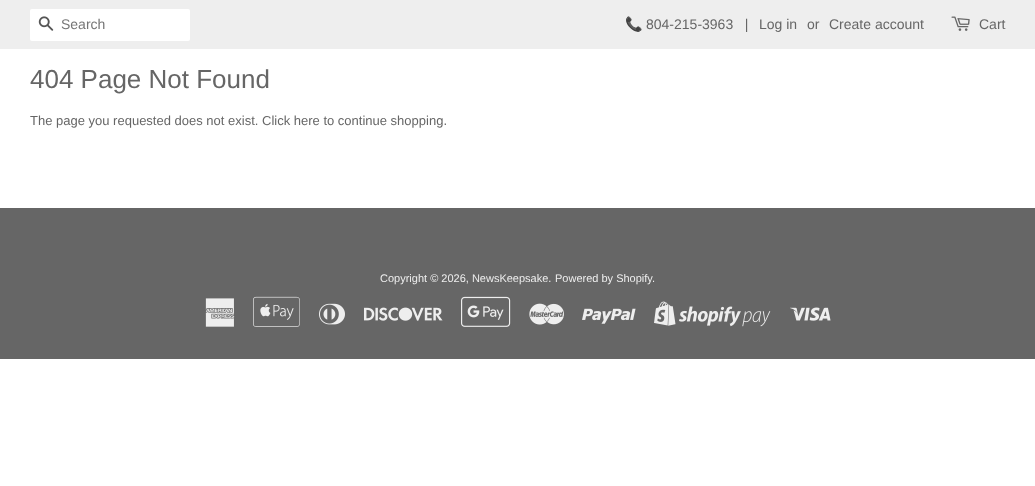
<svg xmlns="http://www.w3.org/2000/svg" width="1035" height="486">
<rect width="100%" height="100%" fill="#fff"/>
<rect width="1035" height="49" fill="#eee"/>
<rect x="30" y="9" width="160" height="32" rx="2" fill="#fff"/>
<image x="38" y="16" width="16" height="15" href="media/1.png"/>
<text x="61" y="29" style="font-family:Liberation Sans;font-size:14px;fill:#757575">Search</text>
<text x="625" y="29" style="font-family:Noto Color Emoji;font-size:14px;fill:#666">📞</text>
<text x="646" y="29" style="font-family:Liberation Sans;font-size:14px;fill:#666" xml:space="preserve">804-215-3963   |</text>
<text x="759" y="29" style="font-family:Liberation Sans;font-size:14px;fill:#666">Log in</text>
<text x="807" y="29" style="font-family:Liberation Sans;font-size:14px;fill:#666">or</text>
<text x="829" y="29" style="font-family:Liberation Sans;font-size:14px;fill:#666">Create account</text>
<image x="951" y="16" width="19" height="15" href="media/2.png"/>
<text x="979" y="29" style="font-family:Liberation Sans;font-size:14px;fill:#666">Cart</text>
<text x="30" y="88" style="font-family:Liberation Sans;font-size:26px;fill:#666">404 Page Not Found</text>
<text x="30" y="125" style="font-family:Liberation Sans;font-size:13px;fill:#666">The page you requested does not exist. Click here to continue shopping.</text>
<rect y="208" width="1035" height="151" fill="#666"/>
<text x="380" y="282" style="font-family:Liberation Sans;font-size:11px;fill:#eee">Copyright © 2026, NewsKeepsake.</text>
<text x="555" y="282" style="font-family:Liberation Sans;font-size:11px;fill:#eee">Powered by Shopify</text>
<text x="652" y="282" style="font-family:Liberation Sans;font-size:11px;fill:#eee">.</text>
<image x="205" y="298" width="30" height="29" href="media/3.png"/>
<image x="253" y="296" width="47" height="31" href="media/4.png"/>
<image x="319" y="303" width="26" height="22" href="media/5.png"/>
<image x="364" y="307" width="79" height="14" href="media/6.png"/>
<image x="461" y="296" width="50" height="31" href="media/7.png"/>
<image x="529" y="303" width="35" height="22" href="media/8.png"/>
<image x="582" y="308" width="54" height="16" href="media/9.png"/>
<image x="654" y="301" width="117" height="26" href="media/10.png"/>
<image x="790" y="307" width="41" height="14" href="media/11.png"/>
</svg>
